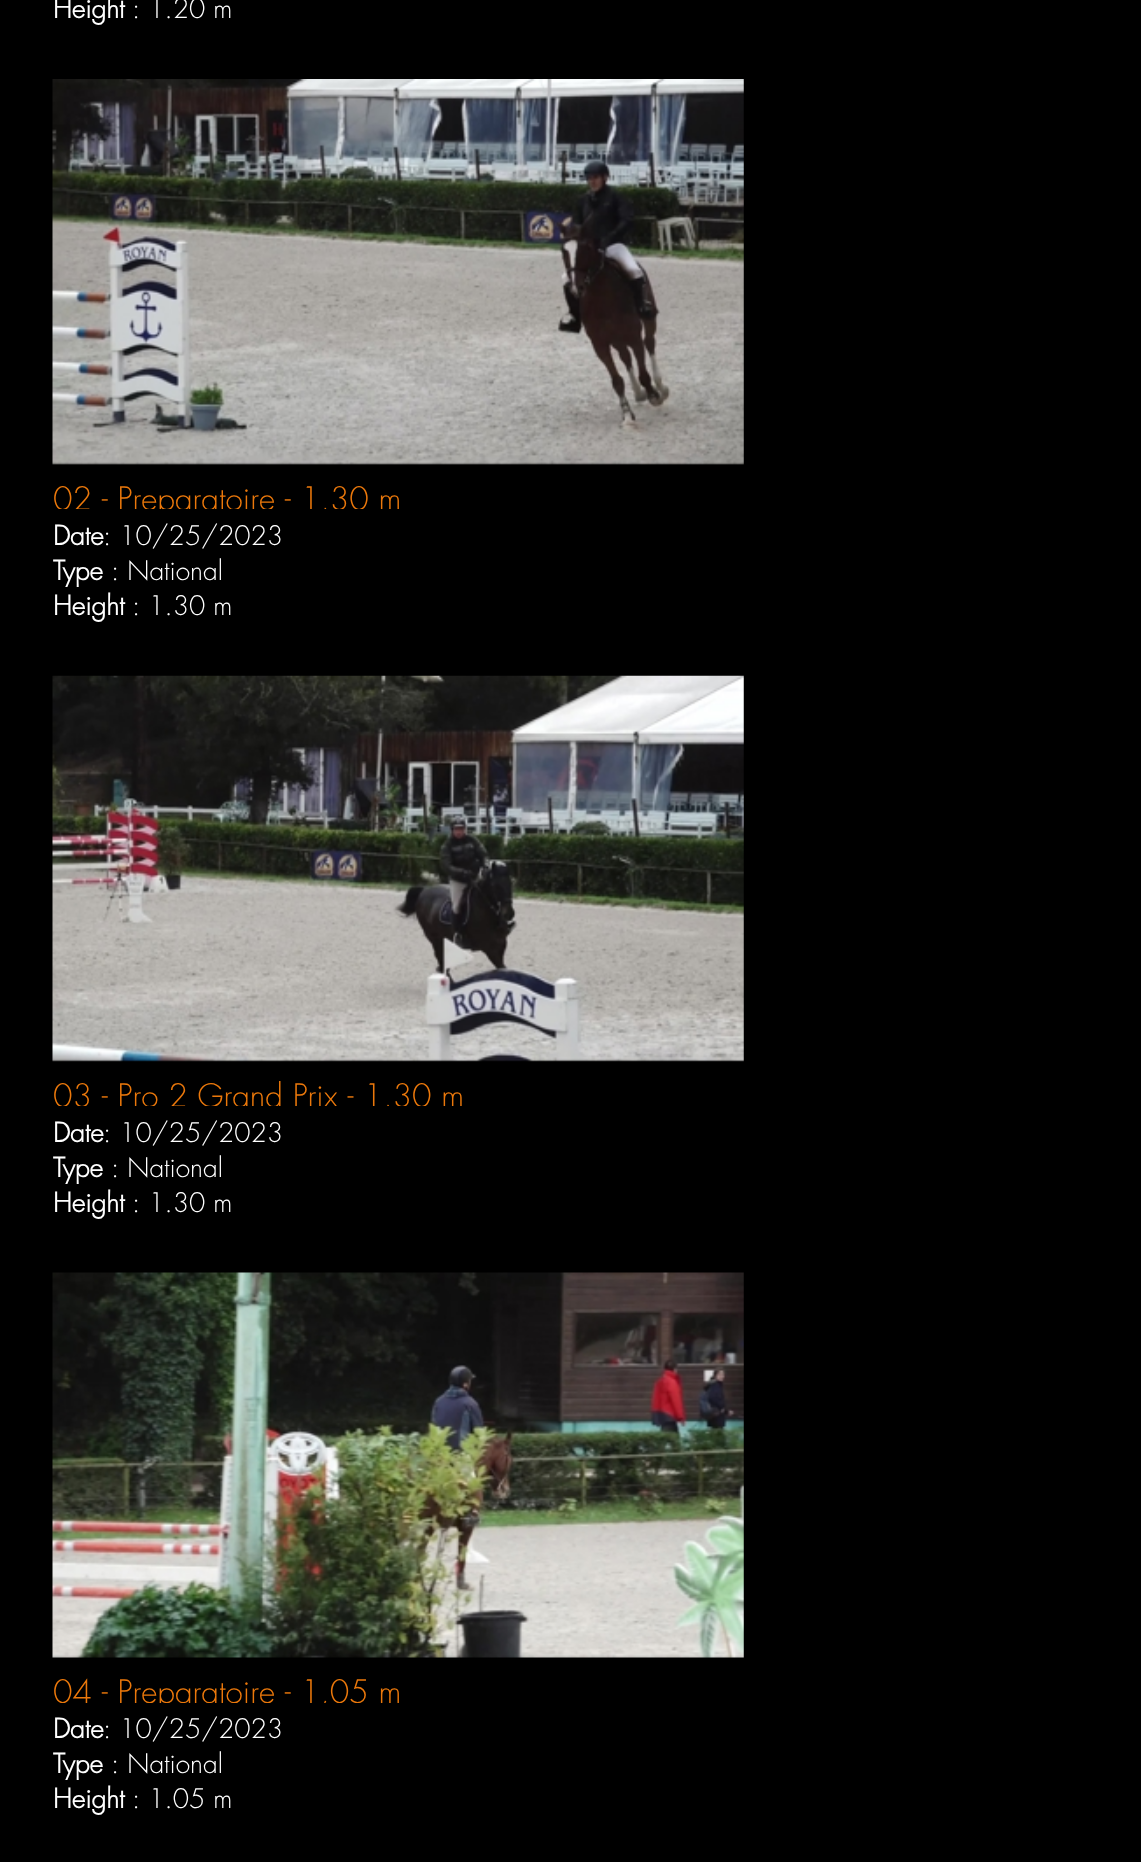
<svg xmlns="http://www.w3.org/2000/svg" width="1141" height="1862">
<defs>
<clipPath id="clip1"><rect x="53" y="481" width="691" height="28"/></clipPath>
<clipPath id="clip2"><rect x="53" y="1078" width="691" height="28"/></clipPath>
<clipPath id="clip3"><rect x="53" y="1675" width="691" height="28"/></clipPath>
</defs>
<rect width="100%" height="100%" fill="#000"/>
<text x="53" y="18" style="font-family:Futura;font-size:26.25px;font-weight:bold;fill:#fff">Height</text>
<text x="132" y="18" style="font-family:Futura;font-size:26.25px;font-weight:300;fill:#fff">: 1.20 m</text>
<image x="52" y="79" width="692" height="386" href="media/1.png"/>
<g clip-path="url(#clip1)">
<text x="53" y="510" style="font-family:Futura;font-size:31.5px;font-weight:300;fill:#eb780b">02 - Preparatoire - 1,30 m</text>
</g>
<text x="53" y="545" style="font-family:Futura;font-size:26.25px;font-weight:bold;fill:#fff">Date</text>
<text x="103" y="545" style="font-family:Futura;font-size:26.25px;font-weight:300;fill:#fff">: 10/25/2023</text>
<text x="53" y="580" style="font-family:Futura;font-size:26.25px;font-weight:bold;fill:#fff">Type</text>
<text x="111" y="580" style="font-family:Futura;font-size:26.25px;font-weight:300;fill:#fff">: National</text>
<text x="53" y="615" style="font-family:Futura;font-size:26.25px;font-weight:bold;fill:#fff">Height</text>
<text x="132" y="615" style="font-family:Futura;font-size:26.25px;font-weight:300;fill:#fff">: 1.30 m</text>
<image x="52" y="675" width="692" height="387" href="media/2.png"/>
<g clip-path="url(#clip2)">
<text x="53" y="1107" style="font-family:Futura;font-size:31.5px;font-weight:300;fill:#eb780b">03 - Pro 2 Grand Prix - 1,30 m</text>
</g>
<text x="53" y="1142" style="font-family:Futura;font-size:26.25px;font-weight:bold;fill:#fff">Date</text>
<text x="103" y="1142" style="font-family:Futura;font-size:26.25px;font-weight:300;fill:#fff">: 10/25/2023</text>
<text x="53" y="1177" style="font-family:Futura;font-size:26.25px;font-weight:bold;fill:#fff">Type</text>
<text x="111" y="1177" style="font-family:Futura;font-size:26.25px;font-weight:300;fill:#fff">: National</text>
<text x="53" y="1212" style="font-family:Futura;font-size:26.25px;font-weight:bold;fill:#fff">Height</text>
<text x="132" y="1212" style="font-family:Futura;font-size:26.25px;font-weight:300;fill:#fff">: 1.30 m</text>
<image x="52" y="1272" width="692" height="386" href="media/3.png"/>
<g clip-path="url(#clip3)">
<text x="53" y="1703" style="font-family:Futura;font-size:31.5px;font-weight:300;fill:#eb780b">04 - Preparatoire - 1,05 m</text>
</g>
<text x="53" y="1738" style="font-family:Futura;font-size:26.25px;font-weight:bold;fill:#fff">Date</text>
<text x="103" y="1738" style="font-family:Futura;font-size:26.25px;font-weight:300;fill:#fff">: 10/25/2023</text>
<text x="53" y="1773" style="font-family:Futura;font-size:26.25px;font-weight:bold;fill:#fff">Type</text>
<text x="111" y="1773" style="font-family:Futura;font-size:26.25px;font-weight:300;fill:#fff">: National</text>
<text x="53" y="1808" style="font-family:Futura;font-size:26.25px;font-weight:bold;fill:#fff">Height</text>
<text x="132" y="1808" style="font-family:Futura;font-size:26.25px;font-weight:300;fill:#fff">: 1.05 m</text>
</svg>
